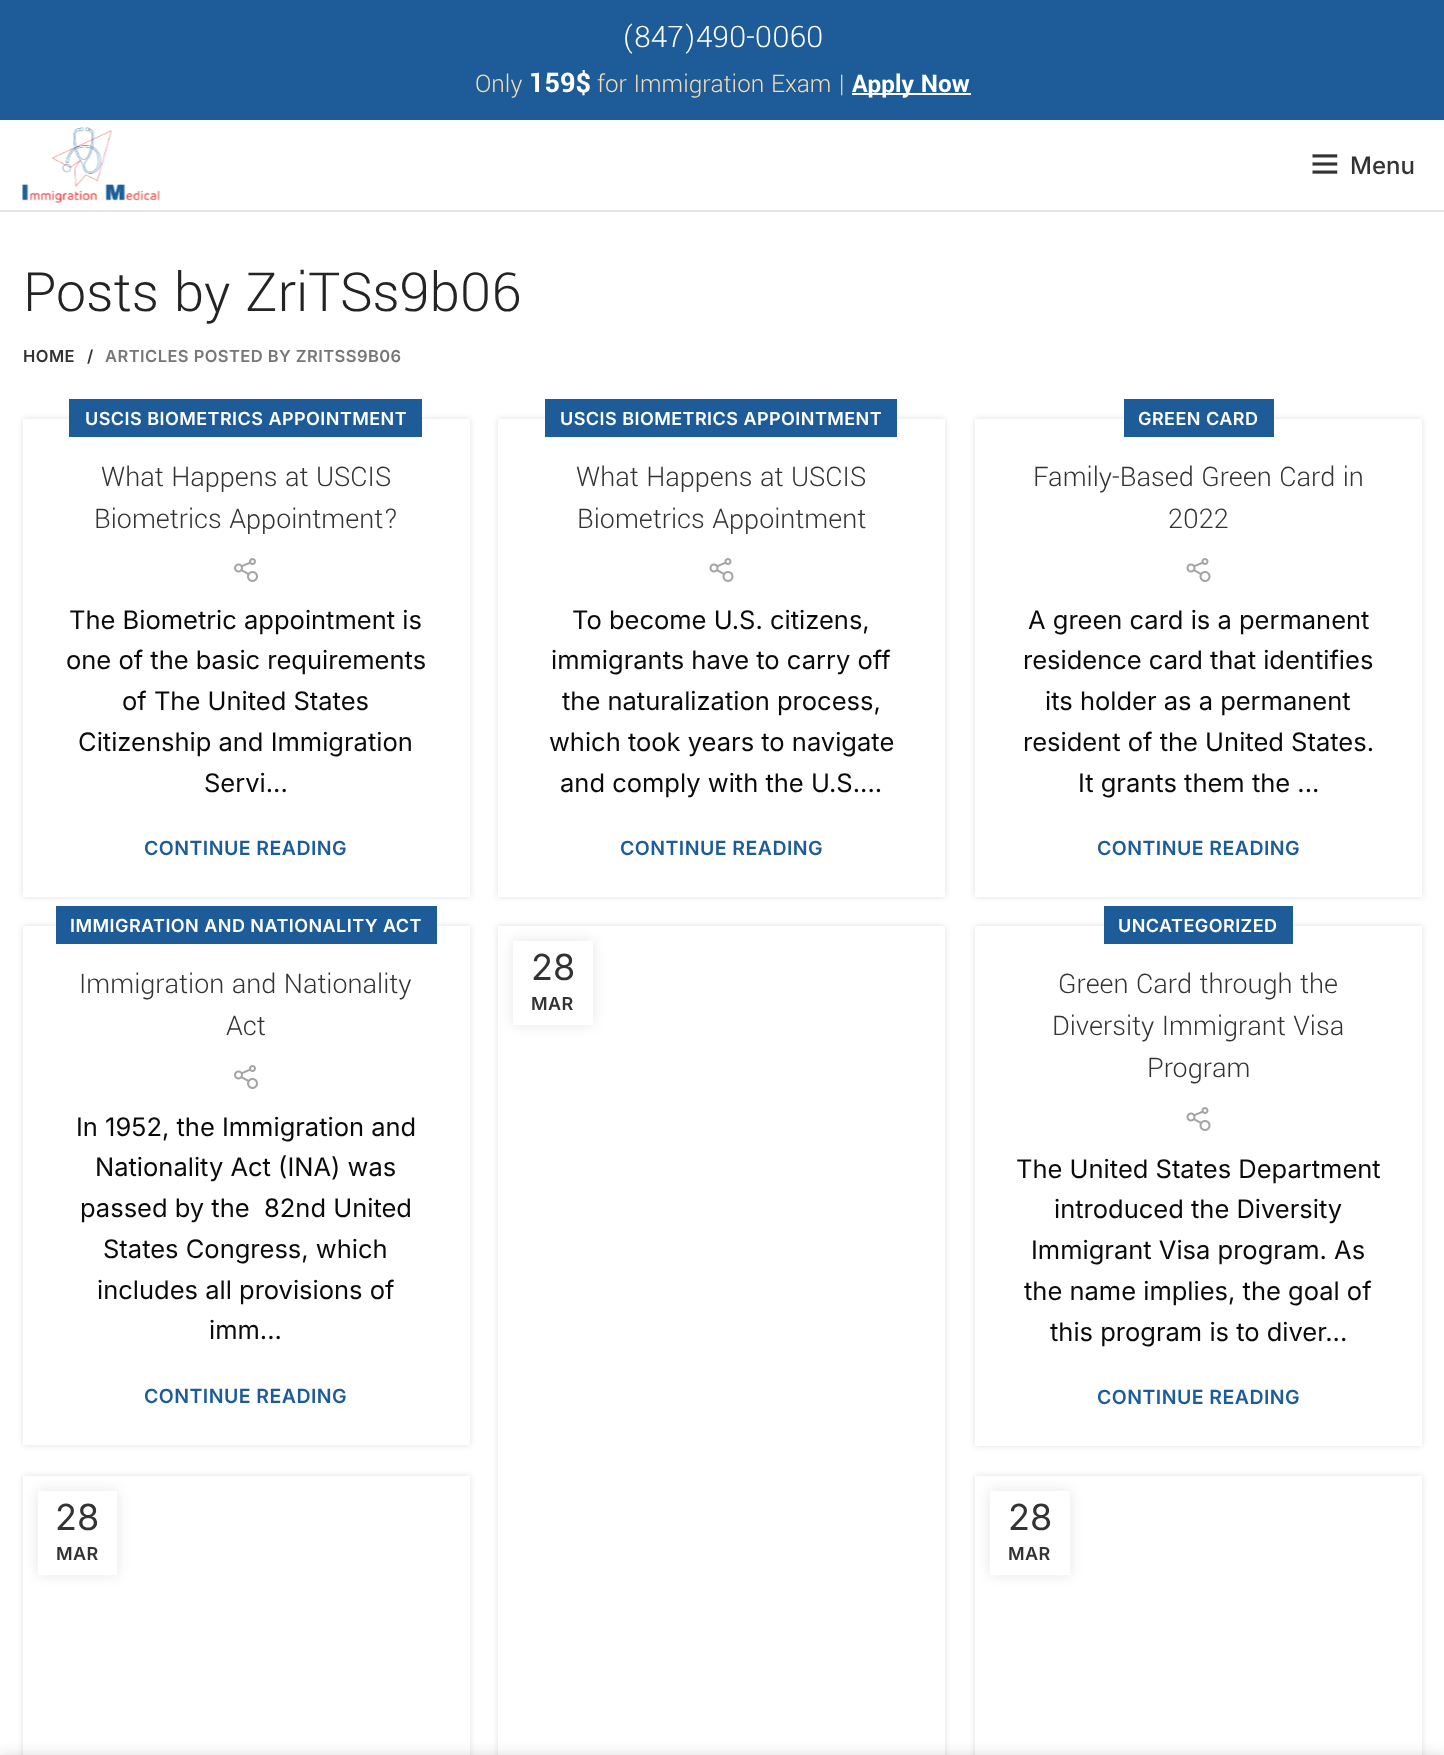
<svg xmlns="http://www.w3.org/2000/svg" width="1444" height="1755">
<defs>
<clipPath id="clip1"><path d="M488 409h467v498h-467zm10 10h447v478h-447z" clip-rule="evenodd"/></clipPath>
<clipPath id="clip2"><path d="M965 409h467v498h-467zm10 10h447v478h-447z" clip-rule="evenodd"/></clipPath>
<clipPath id="clip3"><path d="M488 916h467v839h-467zm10 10h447v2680h-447z" clip-rule="evenodd"/></clipPath>
<clipPath id="clip4"><path d="M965 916h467v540h-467zm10 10h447v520h-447z" clip-rule="evenodd"/></clipPath>
<clipPath id="clip5"><path d="M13 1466h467v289h-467zm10 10h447v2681h-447z" clip-rule="evenodd"/></clipPath>
<clipPath id="clip6"><path d="M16 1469h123v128h-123zm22 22h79v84h-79z" clip-rule="evenodd"/></clipPath>
<clipPath id="clip7"><path d="M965 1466h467v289h-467zm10 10h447v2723h-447z" clip-rule="evenodd"/></clipPath>
</defs>
<rect width="100%" height="100%" fill="#fff"/>
<rect width="1444" height="120" fill="#1d5c99"/>
<text x="622" y="47" style="font-family:Yantramanav;font-size:33px;font-weight:300;fill:#fff">(847)490-0060</text>
<text x="475" y="92" style="font-family:Yantramanav;font-size:27px;font-weight:300;fill:#f5deb3">Only</text>
<text x="529" y="92" style="font-family:Yantramanav;font-size:30px;font-weight:bold;fill:#fff">159$</text>
<text x="597" y="92" style="font-family:Yantramanav;font-size:27px;font-weight:300;fill:#f5deb3">for Immigration Exam |</text>
<rect x="852" y="93" width="119" height="2" fill="#fff"/>
<text x="852" y="92" style="font-family:Yantramanav;font-size:27px;font-weight:bold;fill:#fff">Apply Now</text>
<rect y="210" width="1444" height="2" fill="#e6e6e6"/>
<image x="22" y="127" width="138" height="76" href="media/1.png"/>
<image x="1312" y="154" width="26" height="20" href="media/2.png"/>
<text x="1350" y="174" style="font-family:Inter;font-size:24px;font-weight:500;fill:#333">Menu</text>
<text x="23" y="311" style="font-family:Yantramanav;font-size:60px;font-weight:300;fill:#242424">Posts by ZriTSs9b06</text>
<text x="23" y="362" style="font-family:Inter;font-size:16.5px;font-weight:600;letter-spacing:0.45px;fill:#333">HOME</text>
<text x="87" y="362" style="font-family:Inter;font-size:16.5px;font-weight:600;letter-spacing:0.45px;fill:#333">/</text>
<text x="105" y="362" style="font-family:Inter;font-size:16.5px;font-weight:600;letter-spacing:0.45px;fill:#777">ARTICLES POSTED BY ZRITSS9B06</text>
<rect x="23" y="419" width="447" height="478" fill="#0000001f" filter="blur(3px)"/>
<rect x="23" y="419" width="447" height="478" fill="#fff"/>
<rect x="69" y="399" width="353" height="38" fill="#1d5c99"/>
<text x="85" y="425" style="font-family:Inter;font-size:18px;font-weight:600;letter-spacing:0.45px;fill:#fff">USCIS BIOMETRICS APPOINTMENT</text>
<text x="101" y="486" style="font-family:Yantramanav;font-size:30px;font-weight:300;fill:#333">What Happens at USCIS</text>
<text x="94" y="528" style="font-family:Yantramanav;font-size:30px;font-weight:300;fill:#333">Biometrics Appointment?</text>
<image x="234" y="558" width="24" height="24" href="media/3.png"/>
<text x="69" y="629" style="font-family:Inter;font-size:25.5px;fill:#0a0a0a">The Biometric appointment is</text>
<text x="66" y="669" style="font-family:Inter;font-size:25.5px;fill:#0a0a0a">one of the basic requirements</text>
<text x="122" y="710" style="font-family:Inter;font-size:25.5px;fill:#0a0a0a">of The United States</text>
<text x="78" y="751" style="font-family:Inter;font-size:25.5px;fill:#0a0a0a">Citizenship and Immigration</text>
<text x="204" y="792" style="font-family:Inter;font-size:25.5px;fill:#0a0a0a">Servi...</text>
<text x="144" y="855" style="font-family:Inter;font-size:19.5px;font-weight:600;letter-spacing:0.45px;fill:#1d5c99">CONTINUE READING</text>
<g clip-path="url(#clip1)">
<rect x="498" y="419" width="447" height="478" fill="#0000001f" filter="blur(3px)"/>
</g>
<rect x="545" y="399" width="352" height="38" fill="#1d5c99"/>
<text x="560" y="425" style="font-family:Inter;font-size:18px;font-weight:600;letter-spacing:0.45px;fill:#fff">USCIS BIOMETRICS APPOINTMENT</text>
<text x="576" y="486" style="font-family:Yantramanav;font-size:30px;font-weight:300;fill:#333">What Happens at USCIS</text>
<text x="577" y="528" style="font-family:Yantramanav;font-size:30px;font-weight:300;fill:#333">Biometrics Appointment</text>
<image x="709" y="558" width="25" height="24" href="media/4.png"/>
<text x="572" y="629" style="font-family:Inter;font-size:25.5px;fill:#0a0a0a">To become U.S. citizens,</text>
<text x="551" y="669" style="font-family:Inter;font-size:25.5px;fill:#0a0a0a">immigrants have to carry off</text>
<text x="562" y="710" style="font-family:Inter;font-size:25.5px;fill:#0a0a0a">the naturalization process,</text>
<text x="549" y="751" style="font-family:Inter;font-size:25.5px;fill:#0a0a0a">which took years to navigate</text>
<text x="560" y="792" style="font-family:Inter;font-size:25.5px;fill:#0a0a0a">and comply with the U.S....</text>
<text x="620" y="855" style="font-family:Inter;font-size:19.5px;font-weight:600;letter-spacing:0.45px;fill:#1d5c99">CONTINUE READING</text>
<g clip-path="url(#clip2)">
<rect x="975" y="419" width="447" height="478" fill="#0000001f" filter="blur(3px)"/>
</g>
<rect x="1124" y="399" width="150" height="38" fill="#1d5c99"/>
<text x="1138" y="425" style="font-family:Inter;font-size:18px;font-weight:600;letter-spacing:0.45px;fill:#fff">GREEN CARD</text>
<text x="1033" y="486" style="font-family:Yantramanav;font-size:30px;font-weight:300;fill:#333">Family-Based Green Card in</text>
<text x="1168" y="528" style="font-family:Yantramanav;font-size:30px;font-weight:300;fill:#333">2022</text>
<image x="1186" y="558" width="25" height="24" href="media/4.png"/>
<text x="1028" y="629" style="font-family:Inter;font-size:25.5px;fill:#0a0a0a">A green card is a permanent</text>
<text x="1023" y="669" style="font-family:Inter;font-size:25.5px;fill:#0a0a0a">residence card that identifies</text>
<text x="1045" y="710" style="font-family:Inter;font-size:25.5px;fill:#0a0a0a">its holder as a permanent</text>
<text x="1023" y="751" style="font-family:Inter;font-size:25.5px;fill:#0a0a0a">resident of the United States.</text>
<text x="1078" y="792" style="font-family:Inter;font-size:25.5px;fill:#0a0a0a">It grants them the ...</text>
<text x="1097" y="855" style="font-family:Inter;font-size:19.5px;font-weight:600;letter-spacing:0.45px;fill:#1d5c99">CONTINUE READING</text>
<rect x="23" y="926" width="447" height="519" fill="#0000001f" filter="blur(3px)"/>
<rect x="23" y="926" width="447" height="519" fill="#fff"/>
<rect x="56" y="906" width="381" height="38" fill="#1d5c99"/>
<text x="70" y="932" style="font-family:Inter;font-size:18px;font-weight:600;letter-spacing:0.45px;fill:#fff">IMMIGRATION AND NATIONALITY ACT</text>
<text x="79" y="993" style="font-family:Yantramanav;font-size:30px;font-weight:300;fill:#333">Immigration and Nationality</text>
<text x="226" y="1035" style="font-family:Yantramanav;font-size:30px;font-weight:300;fill:#333">Act</text>
<image x="234" y="1065" width="24" height="24" href="media/3.png"/>
<text x="76" y="1136" style="font-family:Inter;font-size:25.5px;fill:#0a0a0a">In 1952, the Immigration and</text>
<text x="95" y="1176" style="font-family:Inter;font-size:25.5px;fill:#0a0a0a">Nationality Act (INA) was</text>
<text x="80" y="1217" style="font-family:Inter;font-size:25.5px;fill:#0a0a0a" xml:space="preserve">passed by the  82nd United</text>
<text x="103" y="1258" style="font-family:Inter;font-size:25.5px;fill:#0a0a0a">States Congress, which</text>
<text x="97" y="1299" style="font-family:Inter;font-size:25.5px;fill:#0a0a0a">includes all provisions of</text>
<text x="209" y="1339" style="font-family:Inter;font-size:25.5px;fill:#0a0a0a">imm...</text>
<text x="144" y="1403" style="font-family:Inter;font-size:19.5px;font-weight:600;letter-spacing:0.45px;fill:#1d5c99">CONTINUE READING</text>
<g clip-path="url(#clip3)">
<rect x="498" y="926" width="447" height="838" fill="#0000001f" filter="blur(3px)"/>
</g>
<rect x="513" y="941" width="80" height="84" fill="#0000001a" filter="blur(7px)"/>
<rect x="513" y="941" width="80" height="84" fill="#fff"/>
<text x="531" y="980" style="font-family:Inter;font-size:36px;fill:#333">28</text>
<text x="531" y="1010" style="font-family:Inter;font-size:18px;font-weight:600;letter-spacing:0.45px;fill:#333">MAR</text>
<g clip-path="url(#clip4)">
<rect x="975" y="926" width="447" height="520" fill="#0000001f" filter="blur(3px)"/>
</g>
<rect x="1104" y="906" width="189" height="38" fill="#1d5c99"/>
<text x="1118" y="932" style="font-family:Inter;font-size:18px;font-weight:600;letter-spacing:0.45px;fill:#fff">UNCATEGORIZED</text>
<text x="1058" y="993" style="font-family:Yantramanav;font-size:30px;font-weight:300;fill:#333">Green Card through the</text>
<text x="1052" y="1035" style="font-family:Yantramanav;font-size:30px;font-weight:300;fill:#333">Diversity Immigrant Visa</text>
<text x="1147" y="1077" style="font-family:Yantramanav;font-size:30px;font-weight:300;fill:#333">Program</text>
<image x="1186" y="1107" width="25" height="24" href="media/4.png"/>
<text x="1016" y="1178" style="font-family:Inter;font-size:25.5px;fill:#0a0a0a">The United States Department</text>
<text x="1054" y="1218" style="font-family:Inter;font-size:25.5px;fill:#0a0a0a">introduced the Diversity</text>
<text x="1031" y="1259" style="font-family:Inter;font-size:25.5px;fill:#0a0a0a">Immigrant Visa program. As</text>
<text x="1024" y="1300" style="font-family:Inter;font-size:25.5px;fill:#0a0a0a">the name implies, the goal of</text>
<text x="1050" y="1341" style="font-family:Inter;font-size:25.5px;fill:#0a0a0a">this program is to diver...</text>
<text x="1097" y="1404" style="font-family:Inter;font-size:19.5px;font-weight:600;letter-spacing:0.45px;fill:#1d5c99">CONTINUE READING</text>
<g clip-path="url(#clip5)">
<rect x="23" y="1476" width="447" height="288" fill="#0000001f" filter="blur(3px)"/>
</g>
<g clip-path="url(#clip6)">
<rect x="38" y="1491" width="79" height="84" fill="#0000001a" filter="blur(7px)"/>
</g>
<text x="55" y="1530" style="font-family:Inter;font-size:36px;fill:#333">28</text>
<text x="56" y="1560" style="font-family:Inter;font-size:18px;font-weight:600;letter-spacing:0.45px;fill:#333">MAR</text>
<g clip-path="url(#clip7)">
<rect x="975" y="1476" width="447" height="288" fill="#0000001f" filter="blur(3px)"/>
</g>
<rect x="990" y="1491" width="80" height="84" fill="#0000001a" filter="blur(7px)"/>
<rect x="990" y="1491" width="80" height="84" fill="#fff"/>
<text x="1008" y="1530" style="font-family:Inter;font-size:36px;fill:#333">28</text>
<text x="1008" y="1560" style="font-family:Inter;font-size:18px;font-weight:600;letter-spacing:0.45px;fill:#333">MAR</text>
<rect y="1755" width="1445" height="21" fill="#00000024" filter="blur(7px)"/>
</svg>
